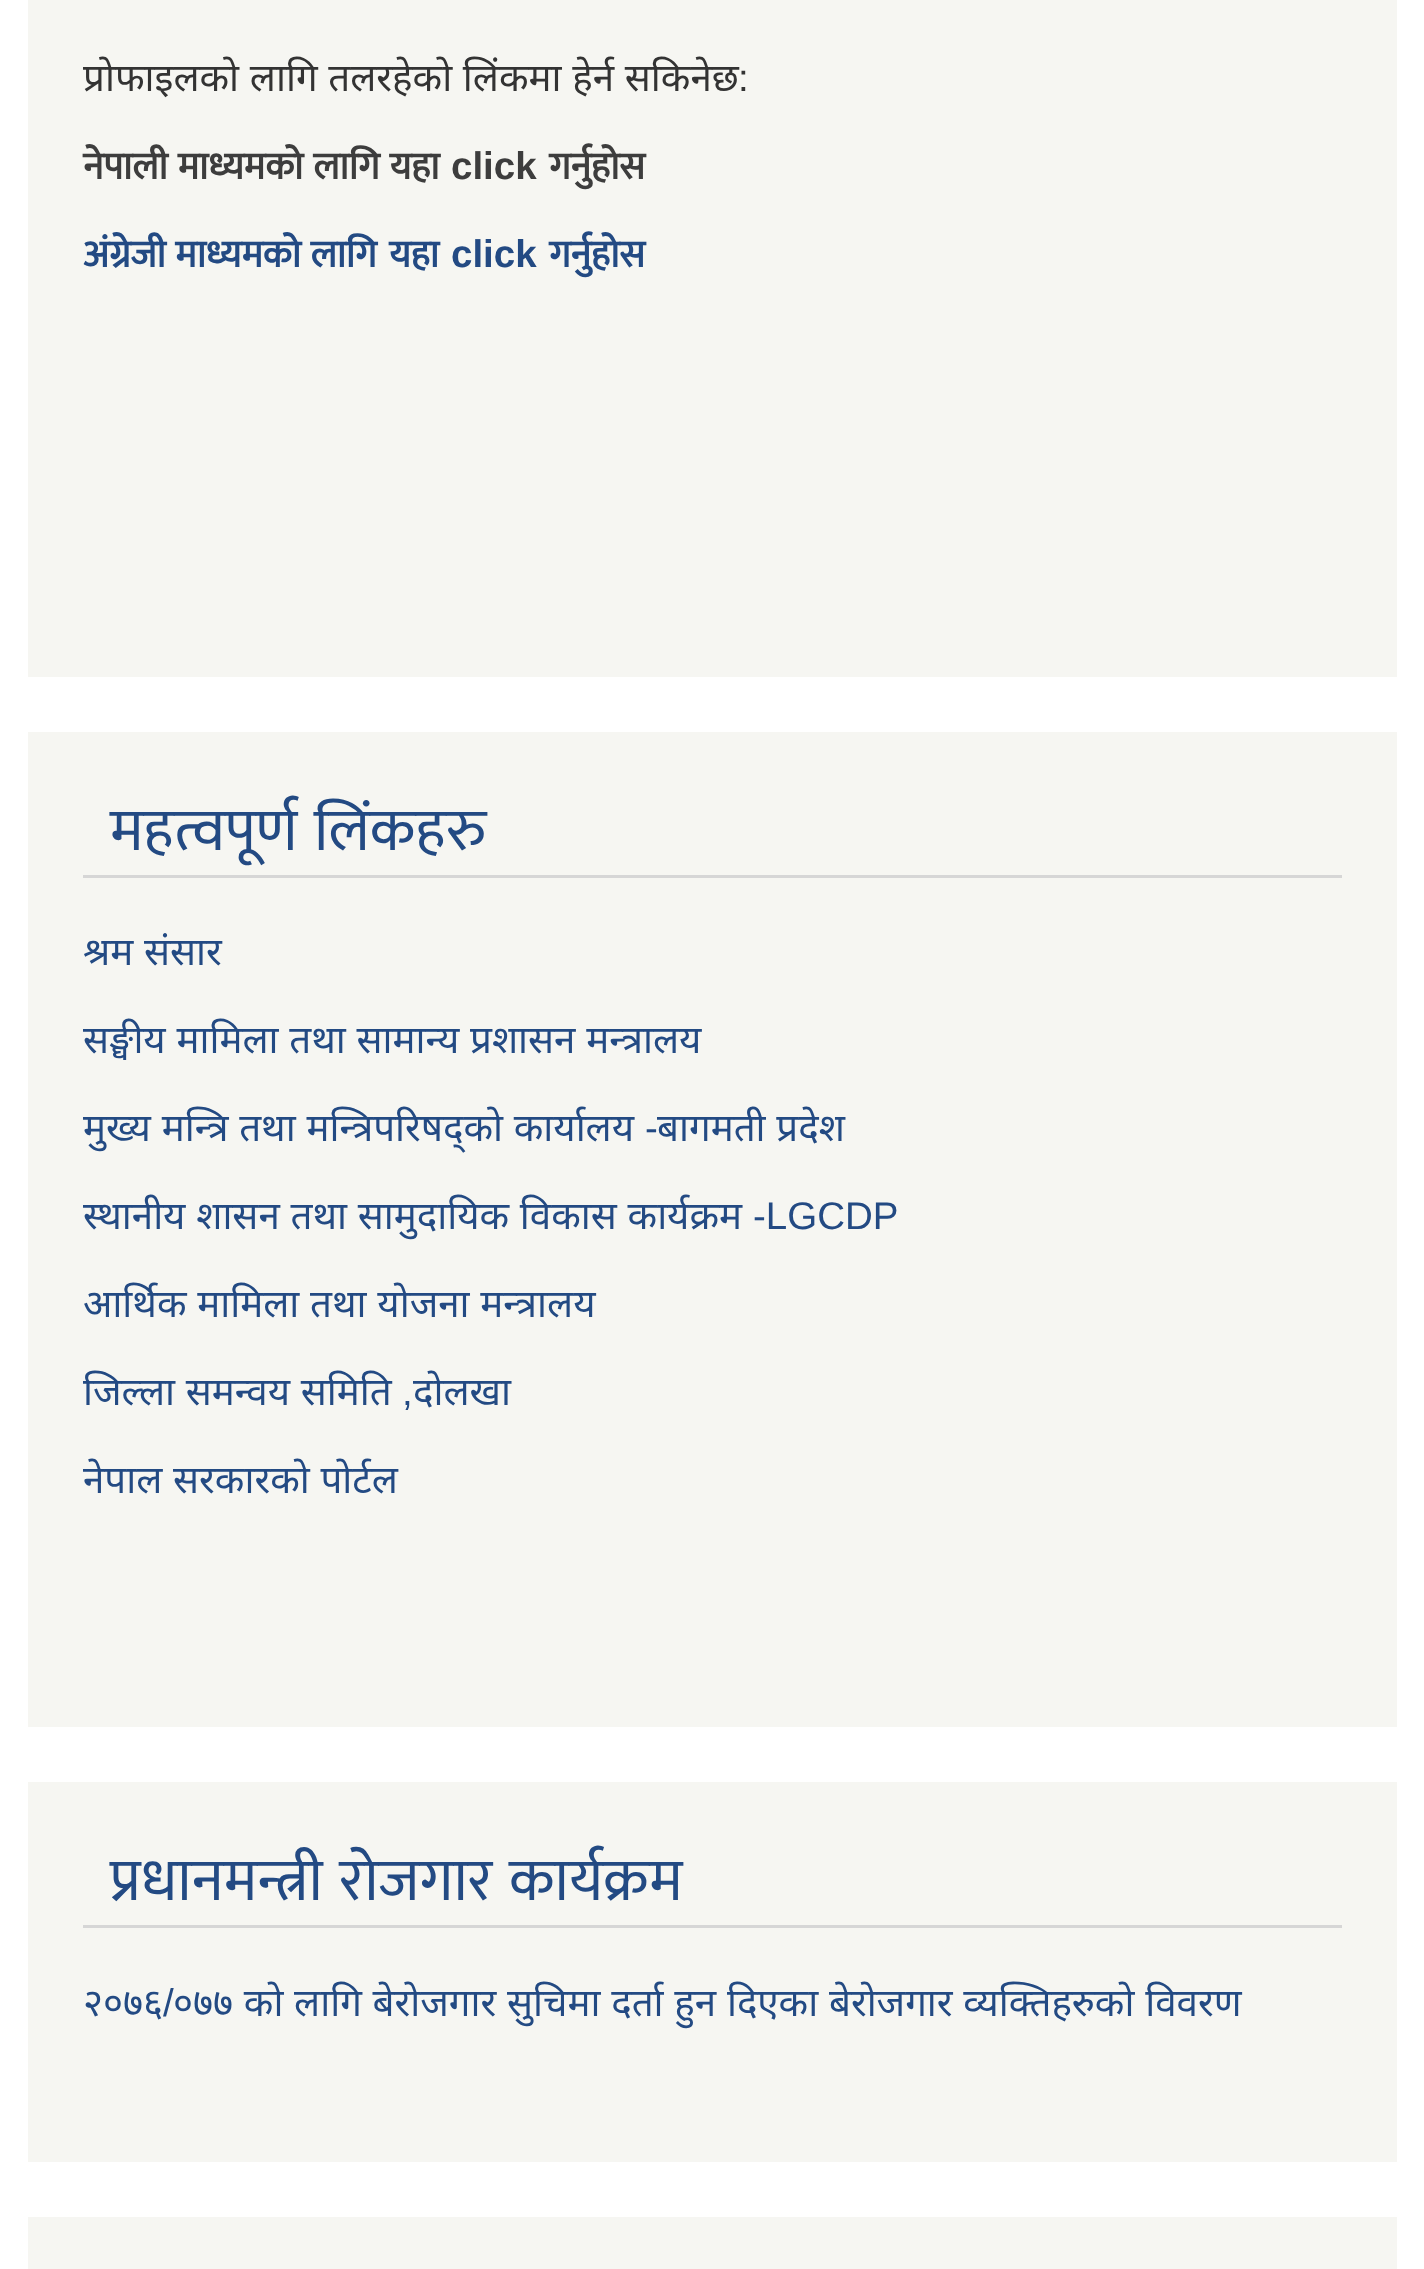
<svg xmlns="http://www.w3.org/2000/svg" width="1424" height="2269">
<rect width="100%" height="100%" fill="#fff"/>
<rect x="28" width="1369" height="677" fill="#f6f6f2"/>
<text x="83" y="91" word-spacing="0.75" style="font-family:Noto Sans;font-size:38.5px;fill:#333">प्रोफाइलको लागि तलरहेको लिंकमा हेर्न सकिनेछ</text>
<text x="738" y="91" style="font-family:Liberation Sans;font-size:38.5px;fill:#333">:</text>
<text x="83" y="179" word-spacing="1.5" style="font-family:Mukta;font-size:38.5px;font-weight:bold;fill:#3d3d3d">नेपाली माध्यमको लागि यहा</text>
<text x="451" y="179" style="font-family:Liberation Sans;font-size:38.5px;font-weight:bold;fill:#3d3d3d">click</text>
<text x="549" y="179" style="font-family:Mukta;font-size:38.5px;font-weight:bold;fill:#3d3d3d">गर्नुहोस</text>
<text x="83" y="267" word-spacing="1" style="font-family:Mukta;font-size:38.5px;font-weight:bold;fill:#234a83">अंग्रेजी माध्यमको लागि</text>
<text x="389" y="267" style="font-family:Mukta;font-size:38.5px;font-weight:bold;fill:#234a83">यहा</text>
<text x="451" y="267" style="font-family:Liberation Sans;font-size:38.5px;font-weight:bold;fill:#234a83">click</text>
<text x="549" y="267" style="font-family:Mukta;font-size:38.5px;font-weight:bold;fill:#234a83">गर्नुहोस</text>
<rect x="28" y="732" width="1369" height="995" fill="#f6f6f2"/>
<rect x="83" y="875" width="1259" height="3" fill="#d6d6d6"/>
<text x="110" y="850" word-spacing="3" style="font-family:Mukta;font-size:60.5px;fill:#234a83">महत्वपूर्ण लिंकहरु</text>
<text x="83" y="965" word-spacing="0.75" style="font-family:Noto Sans;font-size:38.5px;fill:#234a83">श्रम संसार</text>
<text x="83" y="1053" word-spacing="0.75" style="font-family:Noto Sans;font-size:38.5px;fill:#234a83">सङ्घीय मामिला तथा सामान्य प्रशासन मन्त्रालय</text>
<text x="83" y="1141" word-spacing="0.75" style="font-family:Noto Sans;font-size:38.5px;fill:#234a83">मुख्य मन्त्रि तथा मन्त्रिपरिषद्को कार्यालय</text>
<text x="645" y="1141" style="font-family:Liberation Sans;font-size:38.5px;fill:#234a83">-</text>
<text x="657" y="1141" word-spacing="0.75" style="font-family:Noto Sans;font-size:38.5px;fill:#234a83">बागमती प्रदेश</text>
<text x="83" y="1229" word-spacing="0.75" style="font-family:Noto Sans;font-size:38.5px;fill:#234a83">स्थानीय शासन तथा सामुदायिक विकास कार्यक्रम</text>
<text x="753" y="1229" style="font-family:Liberation Sans;font-size:38.5px;fill:#234a83">-LGCDP</text>
<text x="83" y="1317" word-spacing="0.75" style="font-family:Noto Sans;font-size:38.5px;fill:#234a83">आर्थिक मामिला तथा योजना मन्त्रालय</text>
<text x="83" y="1405" word-spacing="0.75" style="font-family:Noto Sans;font-size:38.5px;fill:#234a83">जिल्ला समन्वय समिति</text>
<text x="402" y="1405" style="font-family:Liberation Sans;font-size:38.5px;fill:#234a83">,</text>
<text x="413" y="1405" style="font-family:Noto Sans;font-size:38.5px;fill:#234a83">दोलखा</text>
<text x="83" y="1493" word-spacing="0.75" style="font-family:Noto Sans;font-size:38.5px;fill:#234a83">नेपाल सरकारको पोर्टल</text>
<rect x="28" y="1782" width="1369" height="380" fill="#f6f6f2"/>
<rect x="83" y="1925" width="1259" height="3" fill="#d6d6d6"/>
<text x="110" y="1900" word-spacing="3" style="font-family:Mukta;font-size:60.5px;fill:#234a83">प्रधानमन्त्री रोजगार कार्यक्रम</text>
<text x="83" y="2016" style="font-family:Noto Sans;font-size:38.5px;fill:#234a83">२०७६</text>
<text x="163" y="2016" style="font-family:Liberation Sans;font-size:38.5px;fill:#234a83">/</text>
<text x="173" y="2016" word-spacing="0.75" style="font-family:Noto Sans;font-size:38.5px;fill:#234a83">०७७ को लागि बेरोजगार सुचिमा दर्ता हुन दिएका बेरोजगार व्यक्तिहरुको विवरण</text>
<rect x="28" y="2217" width="1369" height="52" fill="#f6f6f2"/>
</svg>
